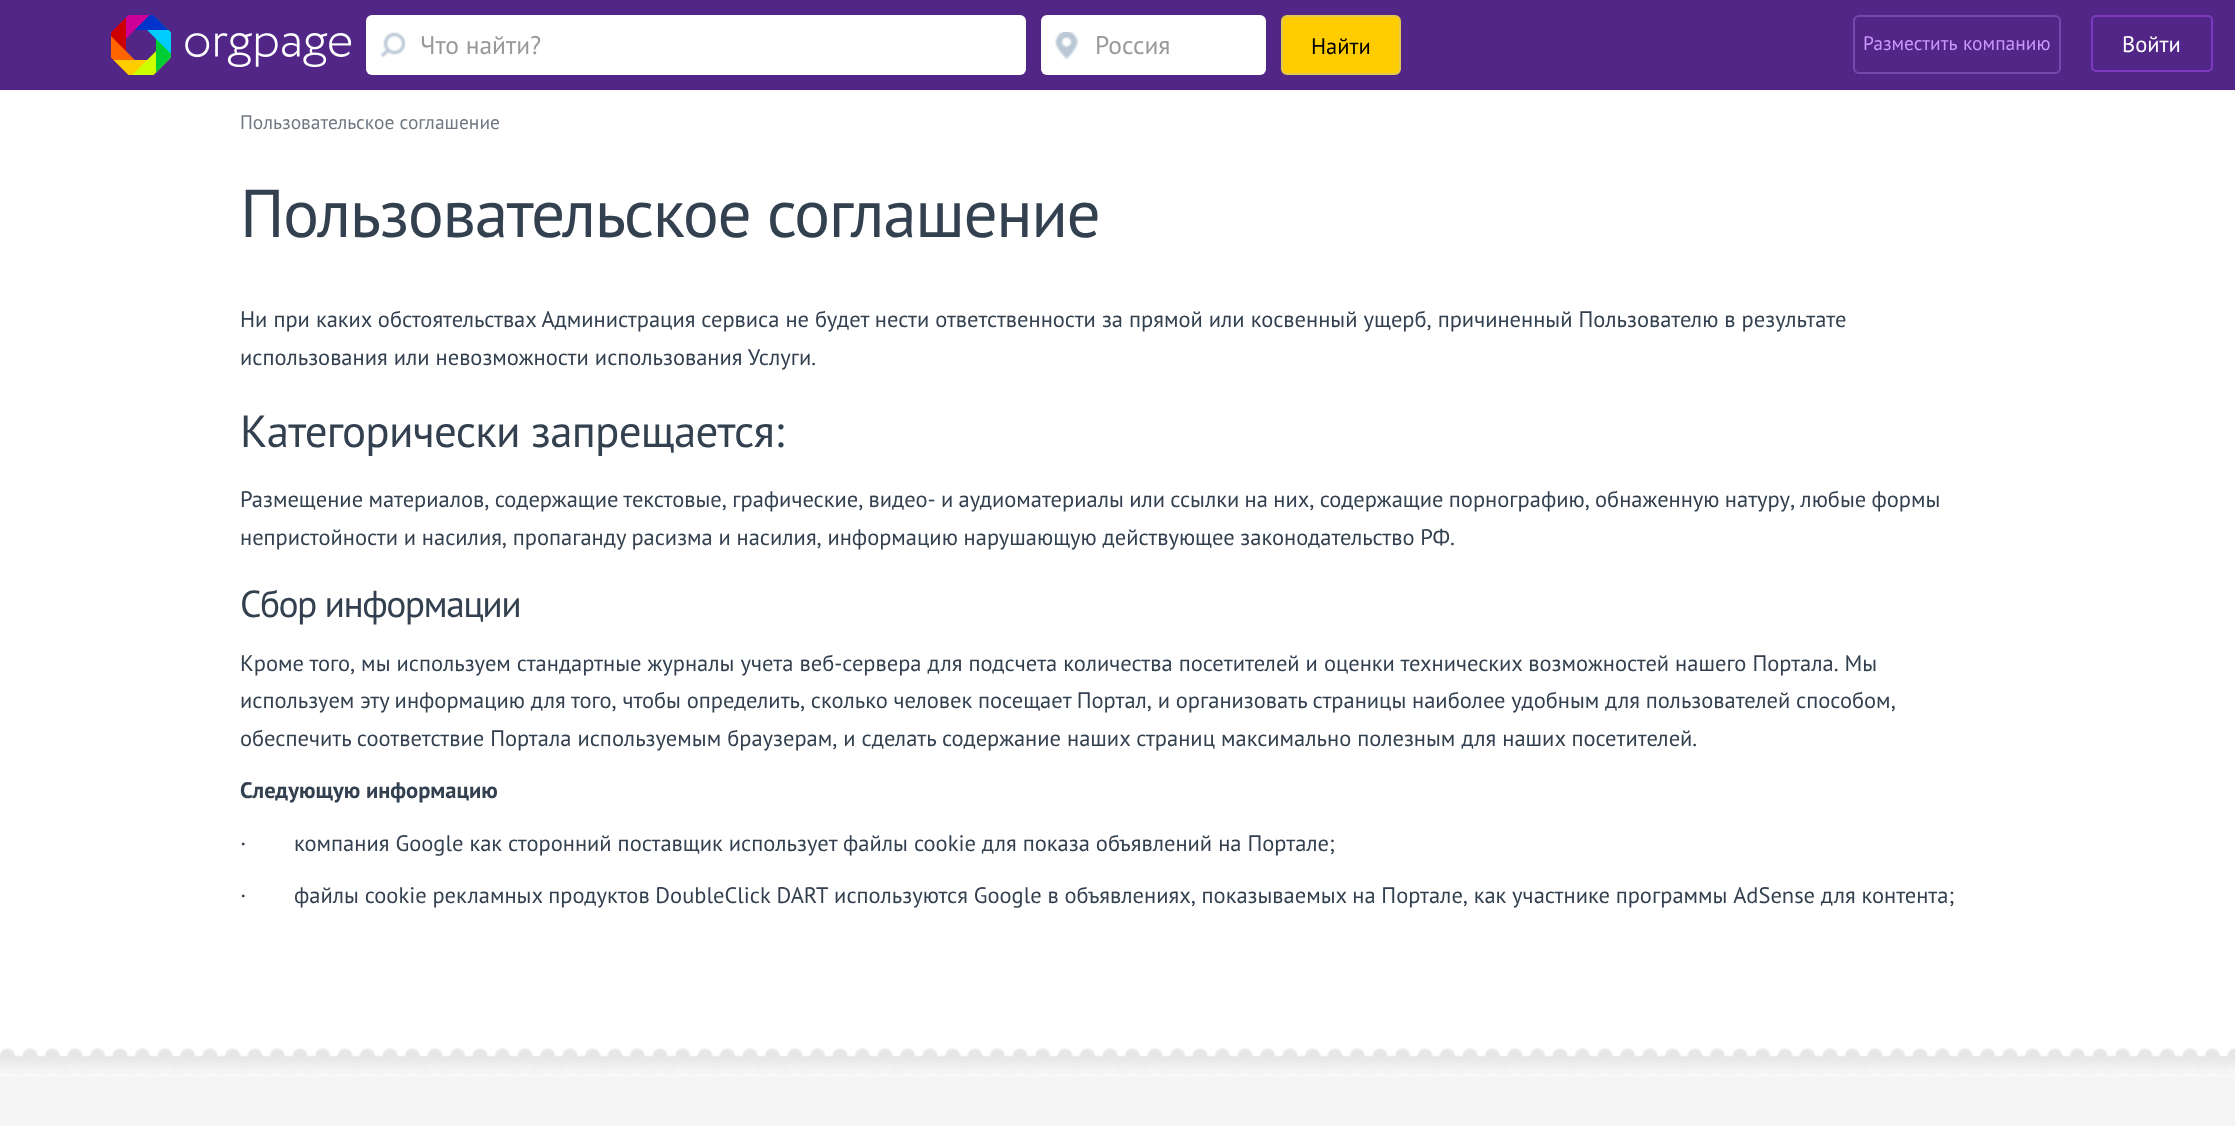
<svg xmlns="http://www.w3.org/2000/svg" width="2235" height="1126">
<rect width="100%" height="100%" fill="#fff"/>
<rect width="2235" height="90" fill="#512687"/>
<image x="111" y="15" width="240" height="60" href="media/1.png"/>
<rect x="366" y="15" width="660" height="60" rx="6" fill="#fff"/>
<image x="380" y="32" width="26" height="26" href="media/2.png"/>
<text x="420" y="54" style="font-family:PT Sans;font-size:25.5px;fill:#999">Что найти?</text>
<rect x="1041" y="15" width="225" height="60" rx="6" fill="#fff"/>
<image x="1055" y="32" width="23" height="27" href="media/3.png"/>
<text x="1095" y="54" style="font-family:PT Sans;font-size:25.5px;fill:#999">Россия</text>
<rect x="1282" y="16" width="118" height="58" rx="5" fill="#fc0" stroke="#e1c84e" stroke-width="2"/>
<text x="1311" y="54" style="font-family:PT Sans;font-size:22.5px;fill:#000">Найти</text>
<rect x="1854" y="16" width="206" height="57" rx="5" fill="none" stroke="#7648ab" stroke-width="2"/>
<text x="1863" y="50" word-spacing="1" style="font-family:PT Sans;font-size:19.5px;fill:#cb97ff">Разместить компанию</text>
<rect x="2092" y="16" width="120" height="55" rx="4" fill="none" stroke="#7e3bc2" stroke-width="2"/>
<text x="2122" y="52" style="font-family:PT Sans;font-size:22.5px;fill:#fff">Войти</text>
<text x="240" y="129" style="font-family:PT Sans;font-size:19.5px;fill:#707983">Пользовательское соглашение</text>
<text x="240" y="237" style="font-family:PT Sans;font-size:67.5px;letter-spacing:-1.5px;fill:#33404f">Пользовательское соглашение</text>
<text x="240" y="327" style="font-family:PT Sans;font-size:22.5px;fill:#33404f">Ни при каких обстоятельствах Администрация сервиса не будет нести ответственности за прямой или косвенный ущерб, причиненный Пользователю в результате</text>
<text x="240" y="365" style="font-family:PT Sans;font-size:22.5px;fill:#33404f">использования или невозможности использования Услуги.</text>
<text x="240" y="447" style="font-family:PT Sans;font-size:45px;letter-spacing:-0.75px;fill:#33404f">Категорически запрещается:</text>
<text x="240" y="507" word-spacing="-0.7" style="font-family:PT Sans;font-size:22.5px;fill:#33404f">Размещение материалов, содержащие текстовые, графические, видео- и аудиоматериалы или ссылки на них, содержащие порнографию, обнаженную натуру, любые формы</text>
<text x="240" y="545" word-spacing="-0.25" style="font-family:PT Sans;font-size:22.5px;fill:#33404f">непристойности и насилия, пропаганду расизма и насилия, информацию нарушающую действующее законодательство РФ.</text>
<text x="240" y="617" style="font-family:PT Sans;font-size:37.5px;letter-spacing:-1.5px;fill:#33404f">Сбор информации</text>
<text x="240" y="671" style="font-family:PT Sans;font-size:22.5px;fill:#33404f">Кроме того, мы используем стандартные журналы учета веб-сервера для подсчета количества посетителей и оценки технических возможностей нашего Портала. Мы</text>
<text x="240" y="708" word-spacing="-0.25" style="font-family:PT Sans;font-size:22.5px;fill:#33404f">используем эту информацию для того, чтобы определить, сколько человек посещает Портал, и организовать страницы наиболее удобным для пользователей способом,</text>
<text x="240" y="746" style="font-family:PT Sans;font-size:22.5px;fill:#33404f">обеспечить соответствие Портала используемым браузерам, и сделать содержание наших страниц максимально полезным для наших посетителей.</text>
<text x="240" y="798" style="font-family:PT Sans;font-size:22.5px;font-weight:bold;fill:#33404f">Cледующую информацию</text>
<text x="240" y="851" style="font-family:PT Sans;font-size:24px;fill:#33404f">·</text>
<text x="294" y="851" style="font-family:PT Sans;font-size:22.5px;fill:#33404f">компания Google как сторонний поставщик использует файлы cookie для показа объявлений на Портале;</text>
<text x="240" y="903" style="font-family:PT Sans;font-size:24px;fill:#33404f">·</text>
<text x="294" y="903" word-spacing="-0.25" style="font-family:PT Sans;font-size:22.5px;fill:#33404f">файлы cookie рекламных продуктов DoubleClick DART используются Google в объявлениях, показываемых на Портале, как участнике программы AdSense для контента;</text>
<rect y="1076" width="2235" height="50" fill="#f5f5f5"/>
<image x="0" y="1048" width="2235" height="28" href="media/4.png"/>
</svg>
